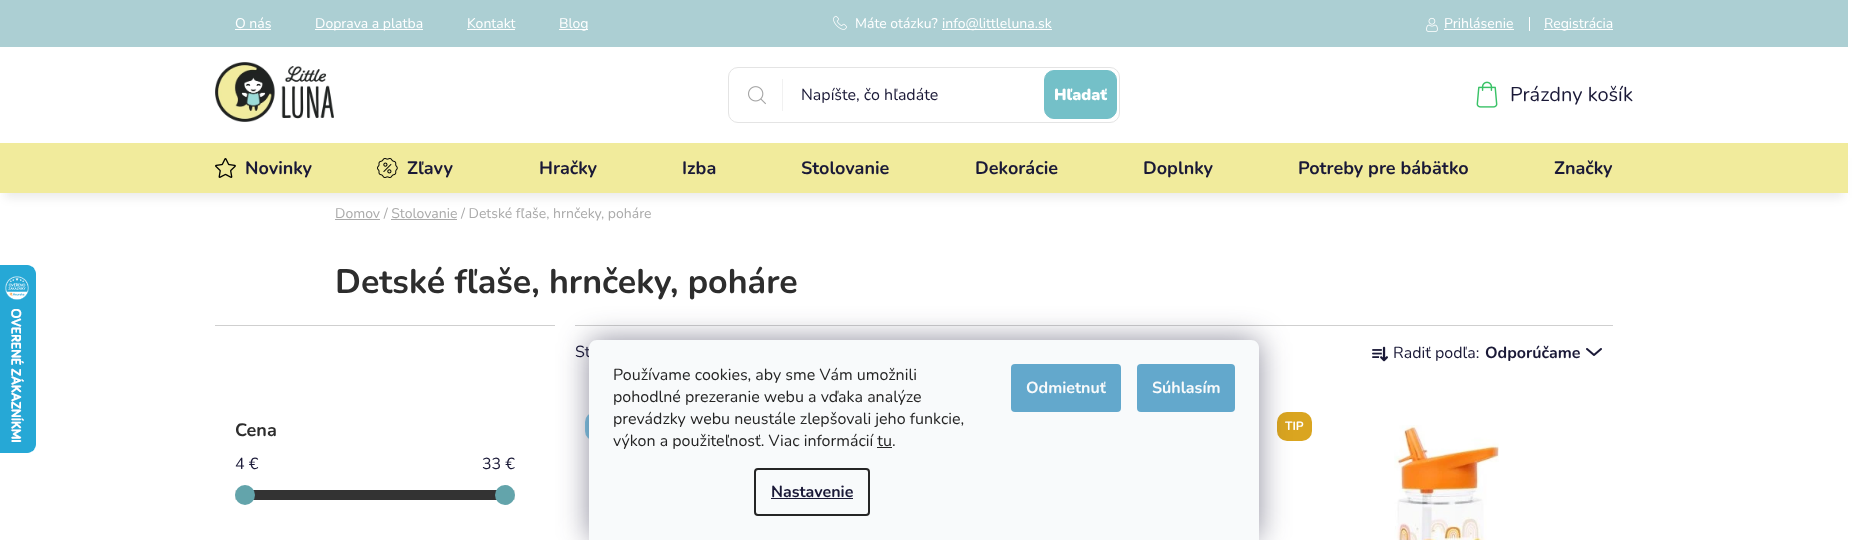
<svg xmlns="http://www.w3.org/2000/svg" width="1863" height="540">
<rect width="100%" height="100%" fill="#fff"/>
<image x="0" y="265" width="36" height="188" href="media/1.png"/>
<rect width="1848" height="47" fill="#accfd3"/>
<text x="235" y="28" style="font-family:Nunito;font-size:14px;fill:#fff">O nás</text>
<rect x="235" y="29" width="36" height="1" fill="#fff"/>
<rect x="315" y="29" width="108" height="1" fill="#fff"/>
<text x="315" y="28" style="font-family:Nunito;font-size:14px;fill:#fff">Doprava a platba</text>
<text x="467" y="28" style="font-family:Nunito;font-size:14px;fill:#fff">Kontakt</text>
<rect x="467" y="29" width="48" height="1" fill="#fff"/>
<rect x="559" y="29" width="29" height="1" fill="#fff"/>
<text x="559" y="28" style="font-family:Nunito;font-size:14px;fill:#fff">Blog</text>
<image x="833" y="15" width="14" height="15" href="media/2.png"/>
<text x="855" y="28" style="font-family:Nunito;font-size:14px;fill:#fff">Máte otázku?</text>
<rect x="942" y="29" width="110" height="1" fill="#fff"/>
<text x="942" y="28" style="font-family:Nunito;font-size:14px;fill:#fff">info@littleluna.sk</text>
<image x="1426" y="17" width="12" height="15" href="media/3.png"/>
<text x="1444" y="28" style="font-family:Nunito;font-size:14px;fill:#fff">Prihlásenie</text>
<rect x="1444" y="29" width="70" height="1" fill="#fff"/>
<rect x="1529" y="17" width="1" height="14" fill="#fff"/>
<rect x="1544" y="29" width="69" height="1" fill="#fff"/>
<text x="1544" y="28" style="font-family:Nunito;font-size:14px;fill:#fff">Registrácia</text>
<image x="215" y="62" width="119" height="60" href="media/4.png"/>
<rect x="728.5" y="67.5" width="391" height="55" rx="9.5" fill="none" stroke="#e4e4e4"/>
<rect x="782" y="79" width="1" height="32" fill="#f1f1f1"/>
<image x="748" y="86" width="18" height="19" href="media/5.png"/>
<text x="801" y="100" style="font-family:Nunito;font-size:16px;fill:#1a1937">Napíšte, čo hľadáte</text>
<rect x="1044.5" y="70.5" width="72" height="48" rx="9.5" fill="#74c0c8" stroke="#74c0c8"/>
<text x="1054" y="100" style="font-family:Nunito;font-size:16px;font-weight:900;fill:#fff">Hľadať</text>
<image x="1476" y="81" width="22" height="27" href="media/6.png"/>
<text x="1510" y="101" style="font-family:Nunito;font-size:20px;fill:#1a1937">Prázdny košík</text>
<rect x="5" y="158" width="1838" height="40" fill="#00000014" filter="blur(5px)"/>
<rect y="143" width="1848" height="50" fill="#f1eb9c"/>
<image x="215" y="158" width="21" height="20" href="media/7.png"/>
<text x="245" y="174" style="font-family:Nunito;font-size:18px;font-weight:bold;fill:#1a1937">Novinky</text>
<image x="377" y="158" width="21" height="20" href="media/8.png"/>
<text x="407" y="174" style="font-family:Nunito;font-size:18px;font-weight:bold;fill:#1a1937">Zľavy</text>
<text x="539" y="174" style="font-family:Nunito;font-size:18px;font-weight:bold;fill:#1a1937">Hračky</text>
<text x="682" y="174" style="font-family:Nunito;font-size:18px;font-weight:bold;fill:#1a1937">Izba</text>
<text x="801" y="174" style="font-family:Nunito;font-size:18px;font-weight:bold;fill:#1a1937">Stolovanie</text>
<text x="975" y="174" style="font-family:Nunito;font-size:18px;font-weight:bold;fill:#1a1937">Dekorácie</text>
<text x="1143" y="174" style="font-family:Nunito;font-size:18px;font-weight:bold;fill:#1a1937">Doplnky</text>
<text x="1298" y="174" style="font-family:Nunito;font-size:18px;font-weight:bold;fill:#1a1937">Potreby pre bábätko</text>
<text x="1554" y="174" style="font-family:Nunito;font-size:18px;font-weight:bold;fill:#1a1937">Značky</text>
<rect x="335" y="219" width="45" height="1" fill="#aaa"/>
<text x="335" y="218" style="font-family:Nunito;font-size:14px;fill:#aaa">Domov / Stolovanie / Detské fľaše, hrnčeky, poháre</text>
<rect x="391" y="219" width="66" height="1" fill="#aaa"/>
<text x="335" y="293" style="font-family:Nunito;font-size:34px;font-weight:bold;fill:#2d2d2d">Detské fľaše, hrnčeky, poháre</text>
<rect x="575" y="325" width="1038" height="1" fill="#cfcfcf"/>
<text x="575" y="357" style="font-family:Nunito;font-size:16px;fill:#1a1937">St</text>
<image x="1372" y="346" width="16" height="16" href="media/9.png"/>
<text x="1393" y="358" style="font-family:Nunito;font-size:16px;fill:#1a1937">Radiť podľa:</text>
<text x="1485" y="358" style="font-family:Nunito;font-size:16px;font-weight:bold;fill:#1a1937">Odporúčame</text>
<image x="1586" y="348" width="16" height="8" href="media/10.png"/>
<rect x="585" y="412" width="85" height="29" rx="10" fill="#87ceeb"/>
<rect x="1277" y="412" width="35" height="29" rx="10" fill="#daa520"/>
<text x="1285" y="430" style="font-family:Nunito;font-size:12px;font-weight:bold;fill:#fff">TIP</text>
<image x="1394" y="425" width="105" height="115" href="media/11.png"/>
<rect x="215" y="325" width="340" height="1" fill="#cfcfcf"/>
<text x="235" y="436" style="font-family:Nunito;font-size:18px;font-weight:bold;fill:#2d2d2d">Cena</text>
<text x="235" y="469" style="font-family:Nunito;font-size:16px;fill:#1a1937">4 €</text>
<text x="482" y="469" style="font-family:Nunito;font-size:16px;fill:#1a1937">33 €</text>
<rect x="235" y="490" width="280" height="10" fill="#e7e7e7"/>
<rect x="253" y="490" width="244" height="10" fill="#333"/>
<circle cx="245" cy="495" r="10" fill="#63a4ab"/>
<circle cx="505" cy="495" r="10" fill="#63a4ab"/>
<rect x="589" y="340" width="670" height="200" rx="8" fill="#1b193980" filter="blur(15px)"/>
<path d="M597 340h654c4.5 0 8 3.5 8 8v192h-670v-192c0-4.5 3.5-8 8-8z" fill="#f8fafb"/>
<text x="613" y="380" style="font-family:Nunito;font-size:16px;fill:#252525">Používame cookies, aby sme Vám umožnili</text>
<text x="613" y="402" style="font-family:Nunito;font-size:16px;fill:#252525">pohodlné prezeranie webu a vďaka analýze</text>
<text x="613" y="424" style="font-family:Nunito;font-size:16px;fill:#252525">prevádzky webu neustále zlepšovali jeho funkcie,</text>
<text x="613" y="446" style="font-family:Nunito;font-size:16px;fill:#252525">výkon a použiteľnosť. Viac informácií tu.</text>
<rect x="877" y="447" width="15" height="1" fill="#252525"/>
<rect x="755" y="469" width="114" height="46" rx="3" fill="none" stroke="#252525" stroke-width="2"/>
<text x="771" y="497" style="font-family:Nunito;font-size:16px;font-weight:bold;fill:#1a1937">Nastavenie</text>
<rect x="771" y="498" width="82" height="1" fill="#1a1937"/>
<rect x="1011" y="364" width="110" height="48" rx="4" fill="#63a8cc"/>
<text x="1026" y="393" style="font-family:Nunito;font-size:16px;font-weight:bold;fill:#f8fafb">Odmietnuť</text>
<rect x="1137" y="364" width="98" height="48" rx="4" fill="#63a8cc"/>
<text x="1152" y="393" style="font-family:Nunito;font-size:16px;font-weight:bold;fill:#f8fafb">Súhlasím</text>
</svg>
